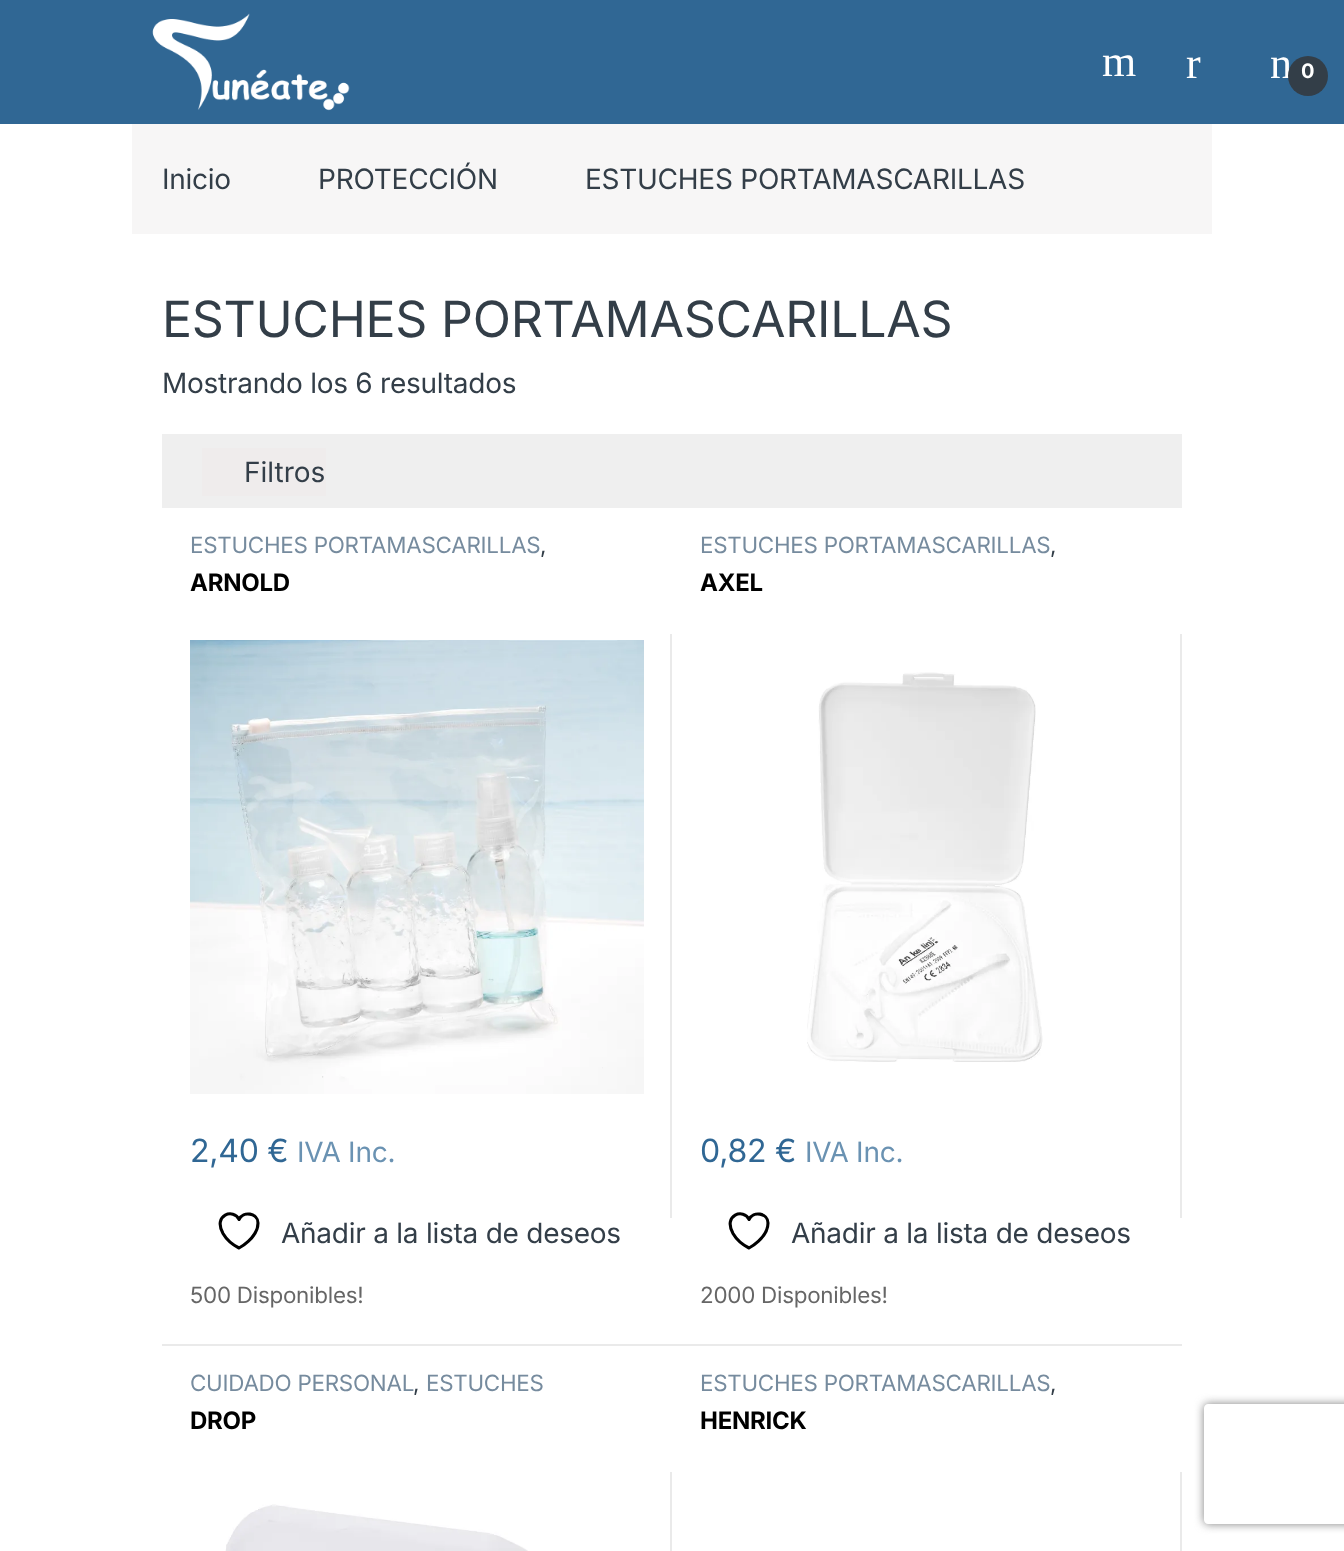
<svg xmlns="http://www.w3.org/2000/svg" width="1344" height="1551">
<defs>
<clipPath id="clip1"><path d="M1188 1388h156v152h-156zm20 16h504c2 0 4 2 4 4v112c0 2-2 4-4 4h-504c-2 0-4-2-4-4v-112c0-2 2-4 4-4z" clip-rule="evenodd"/></clipPath>
</defs>
<rect width="100%" height="100%" fill="#fff"/>
<rect width="1344" height="124" fill="#306794"/>
<image x="152" y="13" width="198" height="98" href="media/1.png"/>
<text x="1102" y="76" style="font-family:Liberation Serif;font-size:44px;letter-spacing:-0.25px;fill:#fff">m</text>
<text x="1186" y="78" style="font-family:Liberation Serif;font-size:44px;letter-spacing:-0.25px;fill:#fff">r</text>
<text x="1270" y="78" style="font-family:Liberation Serif;font-size:44px;letter-spacing:-0.25px;fill:#fff">n</text>
<circle cx="1308" cy="76" r="20" fill="#333e48"/>
<text x="1301" y="78" style="font-family:Inter;font-size:20px;font-weight:bold;letter-spacing:-0.25px;fill:#fff">0</text>
<rect x="132" y="124" width="1080" height="110" fill="#f7f6f6"/>
<text x="162" y="189" style="font-family:Inter;font-size:28px;letter-spacing:-0.25px;fill:#333e48">Inicio</text>
<text x="318" y="189" style="font-family:Inter;font-size:28px;letter-spacing:-0.25px;fill:#333e48">PROTECCIÓN</text>
<text x="585" y="189" style="font-family:Inter;font-size:28px;letter-spacing:-0.25px;fill:#333e48">ESTUCHES PORTAMASCARILLAS</text>
<text x="162" y="337" style="font-family:Inter;font-size:50px;letter-spacing:-0.25px;fill:#333e48">ESTUCHES PORTAMASCARILLAS</text>
<text x="162" y="393" style="font-family:Inter;font-size:28px;letter-spacing:-0.25px;fill:#333e48">Mostrando los 6 resultados</text>
<rect x="162" y="434" width="1020" height="74" fill="#efefef"/>
<rect x="202" y="448" width="124" height="48" fill="#efecec"/>
<text x="244" y="482" style="font-family:Inter;font-size:28px;fill:#333e48">Filtros</text>
<rect x="162" y="1344" width="1020" height="2" fill="#eaeaea"/>
<text x="190" y="553" style="font-family:Inter;font-size:22.4px;letter-spacing:-0.25px;fill:#768b9e">ESTUCHES PORTAMASCARILLAS</text>
<text x="540" y="553" style="font-family:Inter;font-size:22.4px;letter-spacing:-0.25px;fill:#333e48">,</text>
<text x="190" y="591" style="font-family:Inter;font-size:24px;font-weight:bold;letter-spacing:-0.25px;fill:#000">ARNOLD</text>
<image x="190" y="640" width="454" height="454" href="media/2.png"/>
<text x="190" y="1162" style="font-family:Inter;font-size:32px;letter-spacing:-0.25px;fill:#306794">2,40 €</text>
<text x="297" y="1162" style="font-family:Inter;font-size:28px;letter-spacing:-0.25px;fill:#6a92b2">IVA Inc.</text>
<path d="M258 1223c0-10-15-12.5-19-3.5c-5-11.5-26.5-5-16 14c3.5 6 10 11.5 16 14.5c0 0 19-10 19-25z" fill="none" stroke="#000" stroke-width="3.1" stroke-linecap="round" stroke-linejoin="round"/>
<text x="281" y="1243" style="font-family:Inter;font-size:28px;letter-spacing:-0.25px;fill:#333e48">Añadir a la lista de deseos</text>
<text x="190" y="1303" style="font-family:Inter;font-size:22.4px;letter-spacing:-0.25px;fill:#666">500 Disponibles!</text>
<rect x="670" y="634" width="2" height="584" fill="#eaeaea"/>
<text x="700" y="553" style="font-family:Inter;font-size:22.4px;letter-spacing:-0.25px;fill:#768b9e">ESTUCHES PORTAMASCARILLAS</text>
<text x="1050" y="553" style="font-family:Inter;font-size:22.4px;letter-spacing:-0.25px;fill:#333e48">,</text>
<text x="700" y="591" style="font-family:Inter;font-size:24px;font-weight:bold;letter-spacing:-0.25px;fill:#000">AXEL</text>
<image x="807" y="672" width="236" height="390" href="media/3.png"/>
<text x="700" y="1162" style="font-family:Inter;font-size:32px;letter-spacing:-0.25px;fill:#306794">0,82 €</text>
<text x="805" y="1162" style="font-family:Inter;font-size:28px;letter-spacing:-0.25px;fill:#6a92b2">IVA Inc.</text>
<path d="M768 1223c0-10-15-12.5-19-3.5c-5-11.5-26.5-5-16 14c3.5 6 10 11.5 16 14.5c0 0 19-10 19-25z" fill="none" stroke="#000" stroke-width="3.1" stroke-linecap="round" stroke-linejoin="round"/>
<text x="791" y="1243" style="font-family:Inter;font-size:28px;letter-spacing:-0.25px;fill:#333e48">Añadir a la lista de deseos</text>
<text x="700" y="1303" style="font-family:Inter;font-size:22.4px;letter-spacing:-0.25px;fill:#666">2000 Disponibles!</text>
<rect x="1180" y="634" width="2" height="584" fill="#eaeaea"/>
<text x="190" y="1391" style="font-family:Inter;font-size:22.4px;letter-spacing:-0.25px;fill:#768b9e">CUIDADO PERSONAL</text>
<text x="413" y="1391" style="font-family:Inter;font-size:22.4px;letter-spacing:-0.25px;fill:#333e48">,</text>
<text x="426" y="1391" style="font-family:Inter;font-size:22.4px;letter-spacing:-0.25px;fill:#768b9e">ESTUCHES</text>
<text x="190" y="1429" style="font-family:Inter;font-size:24px;font-weight:bold;letter-spacing:-0.25px;fill:#000">DROP</text>
<image x="225" y="1504" width="303" height="47" href="media/4.png"/>
<rect x="670" y="1472" width="2" height="79" fill="#eaeaea"/>
<text x="700" y="1391" style="font-family:Inter;font-size:22.4px;letter-spacing:-0.25px;fill:#768b9e">ESTUCHES PORTAMASCARILLAS</text>
<text x="1050" y="1391" style="font-family:Inter;font-size:22.4px;letter-spacing:-0.25px;fill:#333e48">,</text>
<text x="700" y="1429" style="font-family:Inter;font-size:24px;font-weight:bold;letter-spacing:-0.25px;fill:#000">HENRICK</text>
<rect x="1180" y="1472" width="2" height="79" fill="#eaeaea"/>
<g clip-path="url(#clip1)">
<rect x="1204" y="1404" width="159" height="120" rx="4" fill="#808080" filter="blur(5px)"/>
</g>
</svg>
